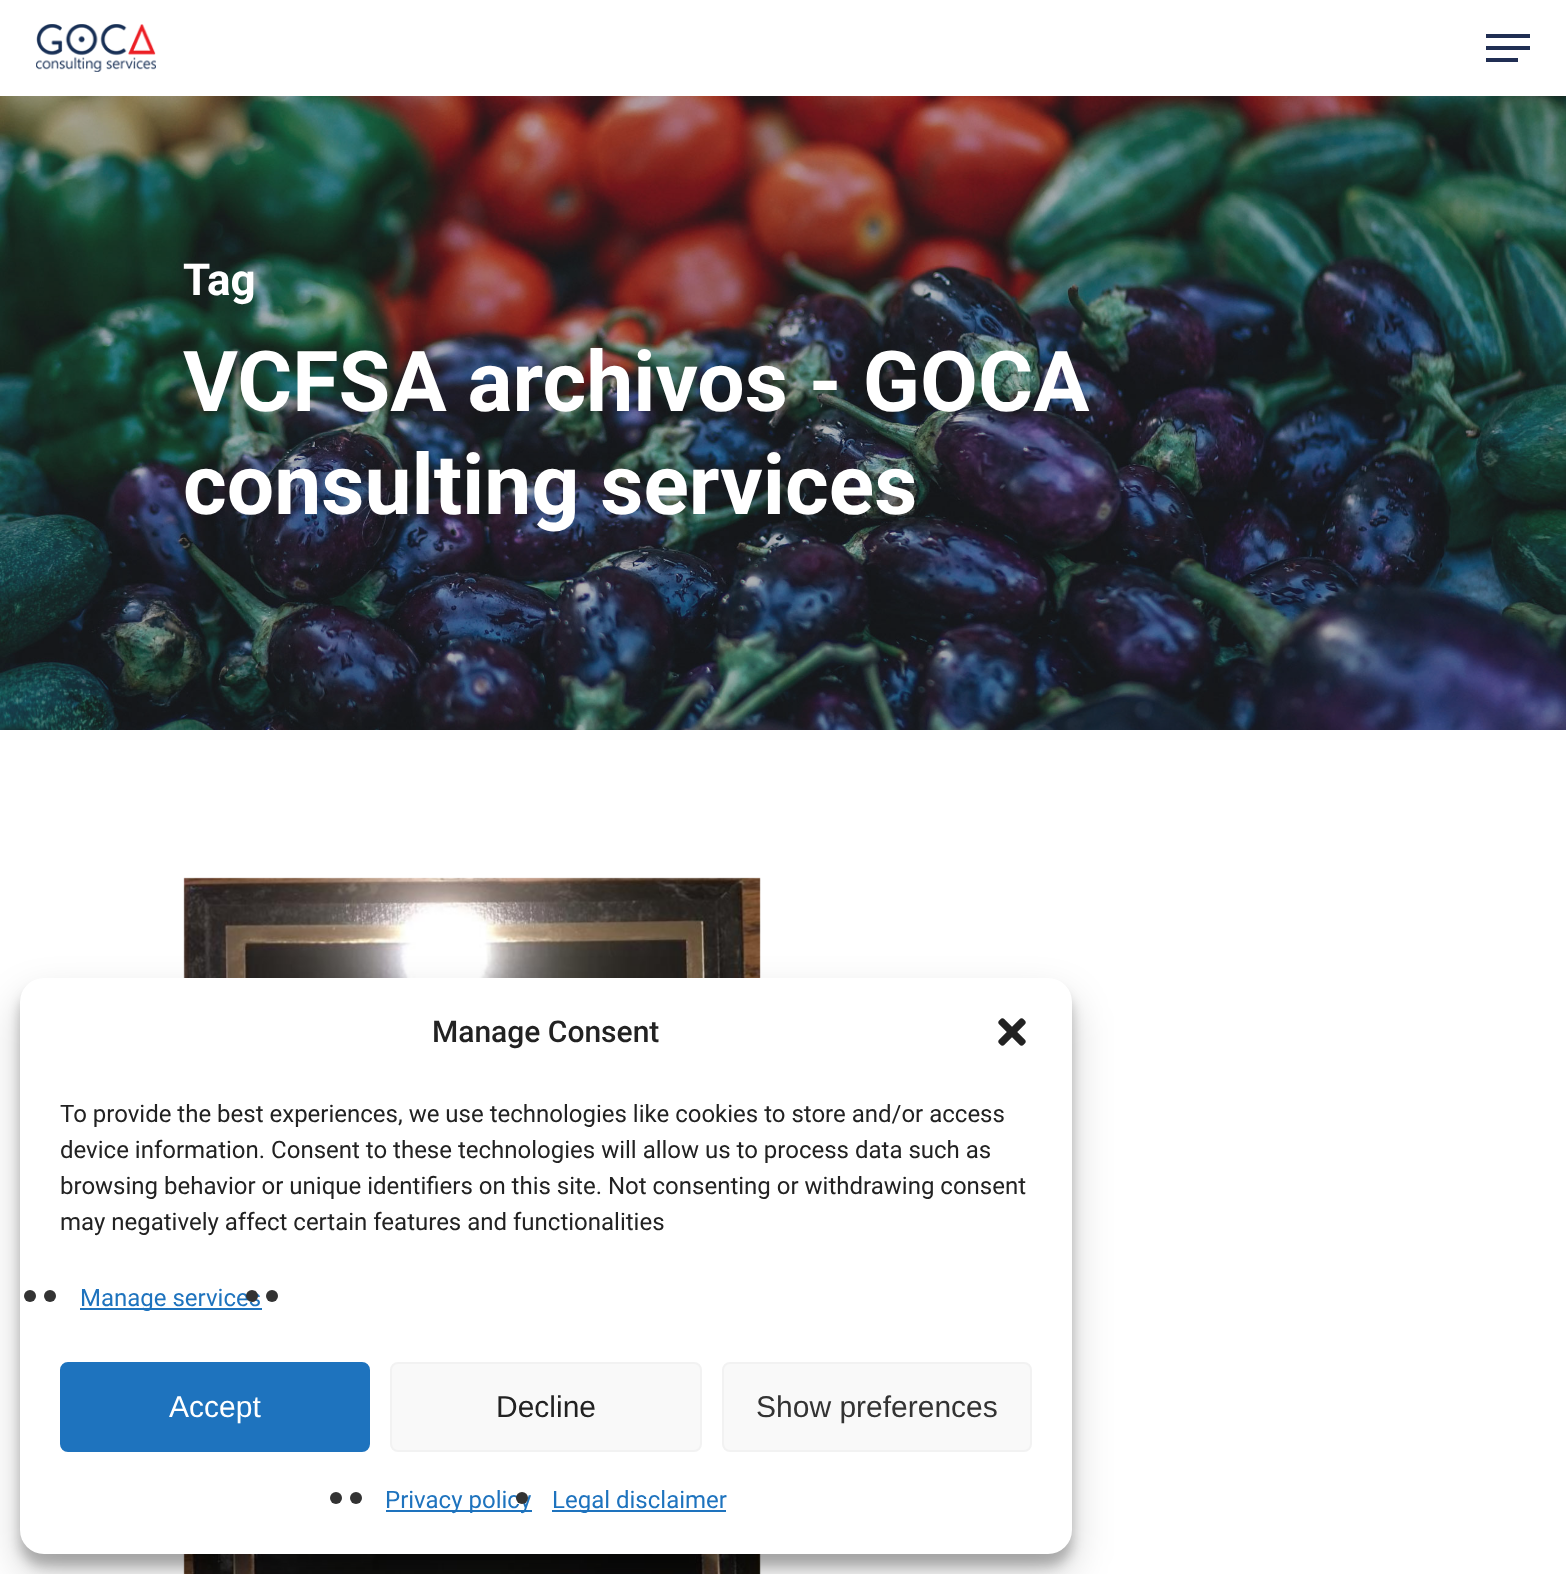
<svg xmlns="http://www.w3.org/2000/svg" width="1566" height="1574">
<rect width="100%" height="100%" fill="#fff"/>
<image x="36" y="24" width="120" height="48" href="media/1.png"/>
<rect x="1486" y="34" width="44" height="4" fill="#202e53"/>
<rect x="1486" y="58" width="32" height="4" fill="#202e53"/>
<rect x="1486" y="46" width="44" height="4" fill="#202e53"/>
<image x="0" y="96" width="1566" height="634" href="media/2.png"/>
<text x="183" y="295" style="font-family:Roboto;font-size:44px;font-weight:bold;fill:#fff">Tag</text>
<text x="183" y="411" style="font-family:Roboto;font-size:84px;font-weight:bold;fill:#fff">VCFSA archivos - GOCA</text>
<text x="183" y="514" style="font-family:Roboto;font-size:84px;font-weight:bold;fill:#fff">consulting services</text>
<image x="183" y="877" width="578" height="697" href="media/3.png"/>
<rect x="20" y="990" width="1052" height="576" rx="24" fill="#0000003b" filter="blur(6px)"/>
<rect x="20" y="998" width="1052" height="576" rx="24" fill="#00000030" filter="blur(20px)"/>
<rect x="20" y="978" width="1052" height="576" rx="24" fill="#fff"/>
<text x="432" y="1042" style="font-family:Roboto;font-size:30px;font-weight:500;fill:#222">Manage Consent</text>
<image x="998" y="1018" width="28" height="28" href="media/4.png"/>
<text x="60" y="1122" style="font-family:Roboto;font-size:24px;fill:#222">To provide the best experiences, we use technologies like cookies to store and/or access</text>
<text x="60" y="1158" style="font-family:Roboto;font-size:24px;fill:#222">device information. Consent to these technologies will allow us to process data such as</text>
<text x="60" y="1194" style="font-family:Roboto;font-size:24px;fill:#222">browsing behavior or unique identifiers on this site. Not consenting or withdrawing consent</text>
<text x="60" y="1230" style="font-family:Roboto;font-size:24px;fill:#222">may negatively affect certain features and functionalities</text>
<circle cx="30" cy="1296" r="6" fill="#333"/>
<circle cx="50" cy="1296" r="6" fill="#333"/>
<rect x="80" y="1308" width="182" height="2" fill="#1e73be"/>
<text x="80" y="1306" style="font-family:Roboto;font-size:24px;fill:#1e73be">Manage services</text>
<circle cx="252" cy="1296" r="6" fill="#333"/>
<circle cx="272" cy="1296" r="6" fill="#333"/>
<rect x="61" y="1363" width="308" height="88" rx="7" fill="#1e73be" stroke="#1e73be" stroke-width="2"/>
<text x="169" y="1417" style="font-family:Liberation Sans;font-size:30px;fill:#fff">Accept</text>
<rect x="391" y="1363" width="310" height="88" rx="7" fill="#f9f9f9" stroke="#f2f2f2" stroke-width="2"/>
<text x="496" y="1417" style="font-family:Liberation Sans;font-size:30px;fill:#222">Decline</text>
<rect x="723" y="1363" width="308" height="88" rx="7" fill="#f9f9f9" stroke="#f2f2f2" stroke-width="2"/>
<text x="756" y="1417" style="font-family:Liberation Sans;font-size:30px;fill:#333">Show preferences</text>
<circle cx="336" cy="1498" r="6" fill="#333"/>
<circle cx="356" cy="1498" r="6" fill="#333"/>
<rect x="386" y="1510" width="146" height="2" fill="#1e73be"/>
<text x="385" y="1508" style="font-family:Roboto;font-size:24px;fill:#1e73be">Privacy policy</text>
<circle cx="522" cy="1498" r="6" fill="#333"/>
<rect x="552" y="1510" width="174" height="2" fill="#1e73be"/>
<text x="552" y="1508" style="font-family:Roboto;font-size:24px;fill:#1e73be">Legal disclaimer</text>
</svg>
